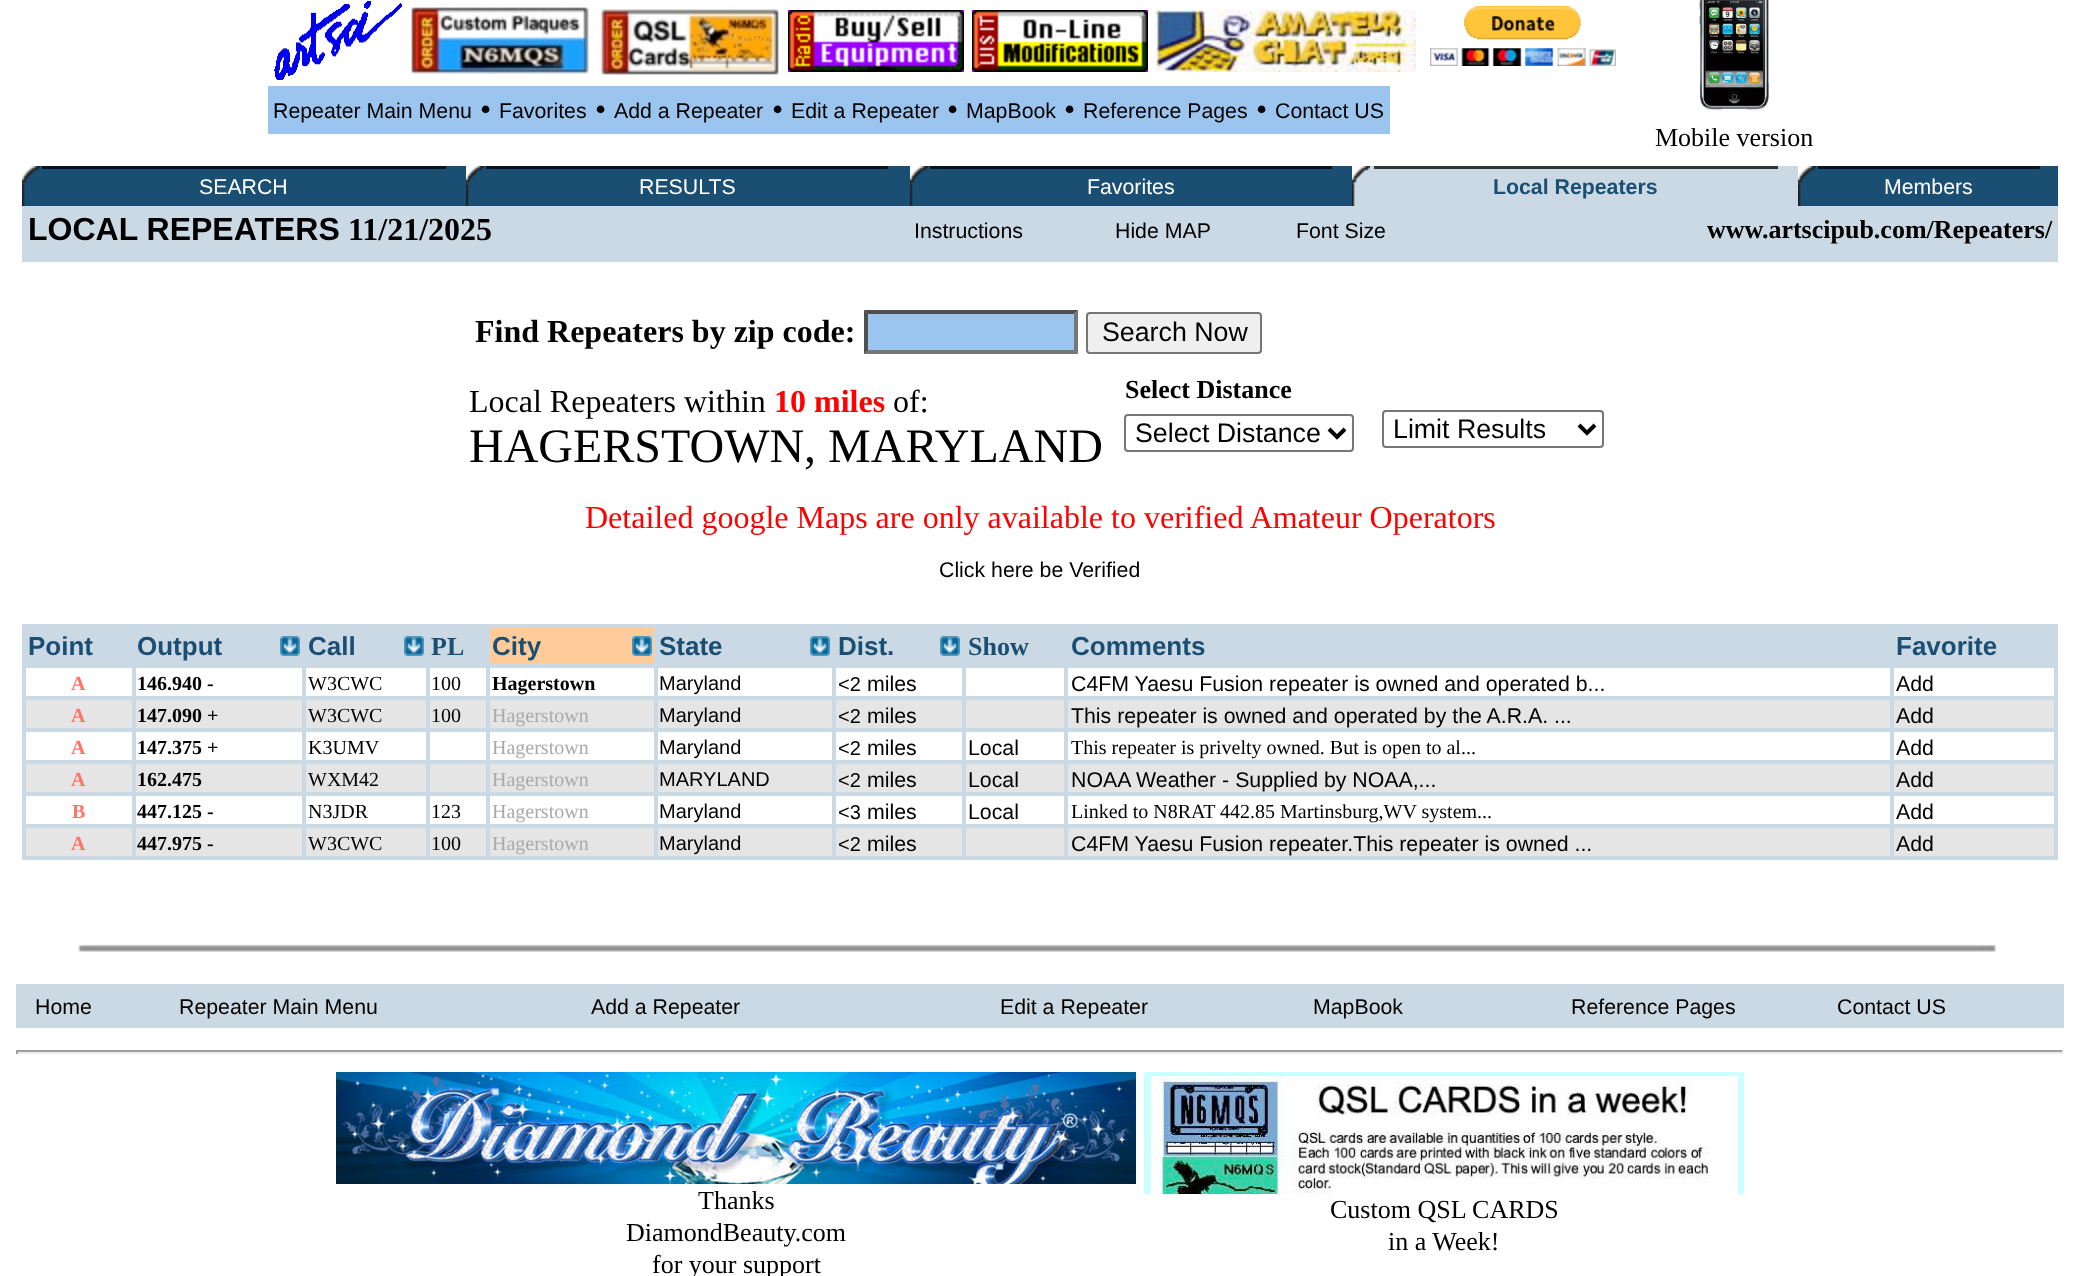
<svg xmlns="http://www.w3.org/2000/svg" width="2079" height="1276">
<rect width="100%" height="100%" fill="#fff"/>
<image x="274" y="1" width="128" height="79" href="media/1.png"/>
<image x="410" y="6" width="180" height="68" href="media/2.png"/>
<image x="598" y="6" width="181" height="70" href="media/3.png"/>
<image x="788" y="10" width="176" height="62" href="media/4.png"/>
<image x="972" y="10" width="176" height="62" href="media/5.png"/>
<image x="1156" y="10" width="260" height="62" href="media/6.png"/>
<image x="1430" y="6" width="186" height="60" href="media/7.png"/>
<rect x="268" y="86" width="1122" height="48" fill="#9bc5ee"/>
<text x="273" y="118" style="font-family:Liberation Sans;font-size:21.3px;fill:#000">Repeater Main Menu</text>
<text x="480" y="120" style="font-family:Liberation Serif;font-size:32px;fill:#000">•</text>
<text x="499" y="118" style="font-family:Liberation Sans;font-size:21.3px;fill:#000">Favorites</text>
<text x="595" y="120" style="font-family:Liberation Serif;font-size:32px;fill:#000">•</text>
<text x="614" y="118" style="font-family:Liberation Sans;font-size:21.3px;fill:#000">Add a Repeater</text>
<text x="772" y="120" style="font-family:Liberation Serif;font-size:32px;fill:#000">•</text>
<text x="791" y="118" style="font-family:Liberation Sans;font-size:21.3px;fill:#000">Edit a Repeater</text>
<text x="947" y="120" style="font-family:Liberation Serif;font-size:32px;fill:#000">•</text>
<text x="966" y="118" style="font-family:Liberation Sans;font-size:21.3px;fill:#000">MapBook</text>
<text x="1064" y="120" style="font-family:Liberation Serif;font-size:32px;fill:#000">•</text>
<text x="1083" y="118" style="font-family:Liberation Sans;font-size:21.3px;fill:#000">Reference Pages</text>
<text x="1256" y="120" style="font-family:Liberation Serif;font-size:32px;fill:#000">•</text>
<text x="1275" y="118" style="font-family:Liberation Sans;font-size:21.3px;fill:#000">Contact US</text>
<image x="1699" y="0" width="70" height="111" href="media/8.png"/>
<text x="1655" y="146" style="font-family:Liberation Serif;font-size:26px;fill:#000">Mobile version</text>
<rect x="23" y="166" width="2035" height="40" fill="#1a4e73"/>
<image x="22" y="166" width="18" height="40" href="media/9.png"/>
<rect x="42" y="166" width="404" height="3" fill="#07141d"/>
<text x="199" y="194" style="font-family:Liberation Sans;font-size:21.3px;fill:#fff">SEARCH</text>
<image x="466" y="166" width="18" height="40" href="media/9.png"/>
<rect x="486" y="166" width="402" height="3" fill="#07141d"/>
<text x="639" y="194" style="font-family:Liberation Sans;font-size:21.3px;fill:#fff">RESULTS</text>
<image x="910" y="166" width="18" height="40" href="media/9.png"/>
<rect x="930" y="166" width="402" height="3" fill="#07141d"/>
<text x="1087" y="194" style="font-family:Liberation Sans;font-size:21.3px;fill:#fff">Favorites</text>
<rect x="1353" y="166" width="21" height="40" fill="#cbd9e4"/>
<image x="1352" y="166" width="18" height="40" href="media/10.png"/>
<rect x="1374" y="169" width="404" height="37" fill="#cbd9e4"/>
<rect x="1374" y="166" width="404" height="3" fill="#333639"/>
<text x="1493" y="194" style="font-family:Liberation Sans;font-size:21.3px;font-weight:bold;fill:#1a4e73">Local Repeaters</text>
<rect x="1778" y="166" width="20" height="40" fill="#cbd9e4"/>
<image x="1798" y="166" width="18" height="40" href="media/9.png"/>
<rect x="1818" y="166" width="222" height="3" fill="#07141d"/>
<text x="1884" y="194" style="font-family:Liberation Sans;font-size:21.3px;fill:#fff">Members</text>
<rect x="22" y="206" width="2036" height="56" fill="#cbd9e4"/>
<text x="28" y="240" style="font-family:Liberation Sans;font-size:32px;font-weight:bold;fill:#000">LOCAL REPEATERS</text>
<text x="348" y="240" style="font-family:Liberation Serif;font-size:32px;font-weight:bold;fill:#000">11/21/2025</text>
<text x="914" y="238" style="font-family:Liberation Sans;font-size:21.3px;fill:#000">Instructions</text>
<text x="1115" y="238" style="font-family:Liberation Sans;font-size:21.3px;fill:#000">Hide MAP</text>
<text x="1296" y="238" style="font-family:Liberation Sans;font-size:21.3px;fill:#000">Font Size</text>
<text x="1707" y="238" style="font-family:Liberation Serif;font-size:26px;font-weight:bold;fill:#000">www.artscipub.com/Repeaters/</text>
<text x="475" y="342" style="font-family:Liberation Serif;font-size:32px;font-weight:bold;fill:#000">Find Repeaters by zip code:</text>
<rect x="864" y="310" width="214" height="44" fill="#9bc5ee"/>
<path d="M864 310h214l-4 4h-206z" fill="#4f4f4f"/>
<path d="M1078 310v44l-4-4v-36z" fill="#767676"/>
<path d="M1078 354h-214l4-4h206z" fill="#767676"/>
<path d="M864 354v-44l4 4v36z" fill="#4f4f4f"/>
<rect x="1087" y="313" width="174" height="40" rx="3" fill="#efefef" stroke="#767676" stroke-width="2"/>
<text x="1102" y="341" style="font-family:Liberation Sans;font-size:26.75px;fill:#000">Search Now</text>
<text x="469" y="412" style="font-family:Liberation Serif;font-size:32px;fill:#000">Local Repeaters within</text>
<text x="774" y="412" style="font-family:Liberation Serif;font-size:32px;font-weight:bold;fill:#f00">10 miles</text>
<text x="893" y="412" style="font-family:Liberation Serif;font-size:32px;fill:#000">of:</text>
<text x="469" y="462" style="font-family:Liberation Serif;font-size:48px;fill:#000">HAGERSTOWN, MARYLAND</text>
<text x="1125" y="398" style="font-family:Liberation Serif;font-size:26px;font-weight:bold;fill:#000">Select Distance</text>
<rect x="1125" y="415" width="228" height="36" rx="3" fill="none" stroke="#767676" stroke-width="2"/>
<path d="M1329 429l8 8l8-8" fill="none" stroke="#000" stroke-width="4"/>
<text x="1135" y="442" style="font-family:Liberation Sans;font-size:26.75px;fill:#000">Select Distance</text>
<rect x="1383" y="411" width="220" height="36" rx="3" fill="none" stroke="#767676" stroke-width="2"/>
<path d="M1579 425l8 8l8-8" fill="none" stroke="#000" stroke-width="4"/>
<text x="1393" y="438" style="font-family:Liberation Sans;font-size:26.75px;fill:#000">Limit Results</text>
<text x="585" y="528" style="font-family:Liberation Serif;font-size:32px;fill:#f00">Detailed google Maps are only available to verified Amateur Operators</text>
<text x="939" y="577" style="font-family:Liberation Sans;font-size:21.3px;fill:#000">Click here be Verified</text>
<rect x="22" y="624" width="2036" height="236" fill="#cbd9e4"/>
<text x="28" y="655" style="font-family:Liberation Sans;font-size:26px;font-weight:bold;fill:#1a4e73">Point</text>
<text x="137" y="655" style="font-family:Liberation Sans;font-size:26px;font-weight:bold;fill:#1a4e73">Output</text>
<image x="280" y="636" width="20" height="20" href="media/11.png"/>
<text x="308" y="655" style="font-family:Liberation Sans;font-size:26px;font-weight:bold;fill:#1a4e73">Call</text>
<image x="404" y="636" width="20" height="20" href="media/11.png"/>
<text x="431" y="655" style="font-family:Liberation Serif;font-size:26px;font-weight:bold;fill:#1a4e73">PL</text>
<rect x="490" y="628" width="164" height="36" fill="#fc9"/>
<text x="492" y="655" style="font-family:Liberation Sans;font-size:26px;font-weight:bold;fill:#1a4e73">City</text>
<image x="632" y="636" width="20" height="20" href="media/11.png"/>
<text x="659" y="655" style="font-family:Liberation Sans;font-size:26px;font-weight:bold;fill:#1a4e73">State</text>
<image x="810" y="636" width="20" height="20" href="media/11.png"/>
<text x="838" y="655" style="font-family:Liberation Sans;font-size:26px;font-weight:bold;fill:#1a4e73">Dist.</text>
<image x="940" y="636" width="20" height="20" href="media/11.png"/>
<text x="968" y="655" style="font-family:Liberation Serif;font-size:26px;font-weight:bold;fill:#1a4e73">Show</text>
<text x="1071" y="655" style="font-family:Liberation Sans;font-size:26px;font-weight:bold;fill:#1a4e73">Comments</text>
<text x="1896" y="655" style="font-family:Liberation Sans;font-size:26px;font-weight:bold;fill:#1a4e73">Favorite</text>
<rect x="26" y="668" width="106" height="28" fill="#fff"/>
<text x="71" y="690" style="font-family:Liberation Serif;font-size:20px;font-weight:bold;fill:#fe7569">A</text>
<rect x="136" y="668" width="166" height="28" fill="#fff"/>
<text x="137" y="690" style="font-family:Liberation Serif;font-size:20px;font-weight:bold;fill:#000">146.940 -</text>
<rect x="306" y="668" width="120" height="28" fill="#fff"/>
<text x="308" y="690" style="font-family:Liberation Serif;font-size:20px;fill:#000">W3CWC</text>
<rect x="430" y="668" width="56" height="28" fill="#fff"/>
<text x="431" y="690" style="font-family:Liberation Serif;font-size:20px;fill:#000">100</text>
<rect x="490" y="668" width="164" height="28" fill="#fff"/>
<text x="492" y="690" style="font-family:Liberation Serif;font-size:20px;font-weight:bold;fill:#000">Hagerstown</text>
<rect x="658" y="668" width="174" height="28" fill="#fff"/>
<text x="659" y="690" style="font-family:Liberation Sans;font-size:20px;fill:#000">Maryland</text>
<rect x="836" y="668" width="126" height="28" fill="#fff"/>
<text x="838" y="691" style="font-family:Liberation Sans;font-size:20px;fill:#000">&lt;2</text>
<text x="867" y="691" style="font-family:Liberation Sans;font-size:21.3px;fill:#000">miles</text>
<rect x="966" y="668" width="98" height="28" fill="#fff"/>
<rect x="1068" y="668" width="822" height="28" fill="#fff"/>
<text x="1071" y="691" style="font-family:Liberation Sans;font-size:21.3px;fill:#000">C4FM Yaesu Fusion repeater is owned and operated b...</text>
<rect x="1894" y="668" width="160" height="28" fill="#fff"/>
<text x="1896" y="691" style="font-family:Liberation Sans;font-size:21.3px;fill:#000">Add</text>
<rect x="26" y="700" width="106" height="28" fill="#e5e5e5"/>
<text x="71" y="722" style="font-family:Liberation Serif;font-size:20px;font-weight:bold;fill:#fe7569">A</text>
<rect x="136" y="700" width="166" height="28" fill="#e5e5e5"/>
<text x="137" y="722" style="font-family:Liberation Serif;font-size:20px;font-weight:bold;fill:#000">147.090 +</text>
<rect x="306" y="700" width="120" height="28" fill="#e5e5e5"/>
<text x="308" y="722" style="font-family:Liberation Serif;font-size:20px;fill:#000">W3CWC</text>
<rect x="430" y="700" width="56" height="28" fill="#e5e5e5"/>
<text x="431" y="722" style="font-family:Liberation Serif;font-size:20px;fill:#000">100</text>
<rect x="490" y="700" width="164" height="28" fill="#e5e5e5"/>
<text x="492" y="722" style="font-family:Liberation Serif;font-size:20px;fill:#aaa">Hagerstown</text>
<rect x="658" y="700" width="174" height="28" fill="#e5e5e5"/>
<text x="659" y="722" style="font-family:Liberation Sans;font-size:20px;fill:#000">Maryland</text>
<rect x="836" y="700" width="126" height="28" fill="#e5e5e5"/>
<text x="838" y="723" style="font-family:Liberation Sans;font-size:20px;fill:#000">&lt;2</text>
<text x="867" y="723" style="font-family:Liberation Sans;font-size:21.3px;fill:#000">miles</text>
<rect x="966" y="700" width="98" height="28" fill="#e5e5e5"/>
<rect x="1068" y="700" width="822" height="28" fill="#e5e5e5"/>
<text x="1071" y="723" style="font-family:Liberation Sans;font-size:21.3px;fill:#000">This repeater is owned and operated by the A.R.A. ...</text>
<rect x="1894" y="700" width="160" height="28" fill="#e5e5e5"/>
<text x="1896" y="723" style="font-family:Liberation Sans;font-size:21.3px;fill:#000">Add</text>
<rect x="26" y="732" width="106" height="28" fill="#fff"/>
<text x="71" y="754" style="font-family:Liberation Serif;font-size:20px;font-weight:bold;fill:#fe7569">A</text>
<rect x="136" y="732" width="166" height="28" fill="#fff"/>
<text x="137" y="754" style="font-family:Liberation Serif;font-size:20px;font-weight:bold;fill:#000">147.375 +</text>
<rect x="306" y="732" width="120" height="28" fill="#fff"/>
<text x="308" y="754" style="font-family:Liberation Serif;font-size:20px;fill:#000">K3UMV</text>
<rect x="430" y="732" width="56" height="28" fill="#fff"/>
<rect x="490" y="732" width="164" height="28" fill="#fff"/>
<text x="492" y="754" style="font-family:Liberation Serif;font-size:20px;fill:#aaa">Hagerstown</text>
<rect x="658" y="732" width="174" height="28" fill="#fff"/>
<text x="659" y="754" style="font-family:Liberation Sans;font-size:20px;fill:#000">Maryland</text>
<rect x="836" y="732" width="126" height="28" fill="#fff"/>
<text x="838" y="755" style="font-family:Liberation Sans;font-size:20px;fill:#000">&lt;2</text>
<text x="867" y="755" style="font-family:Liberation Sans;font-size:21.3px;fill:#000">miles</text>
<rect x="966" y="732" width="98" height="28" fill="#fff"/>
<text x="968" y="755" style="font-family:Liberation Sans;font-size:21.3px;fill:#000">Local</text>
<rect x="1068" y="732" width="822" height="28" fill="#fff"/>
<text x="1071" y="754" style="font-family:Liberation Serif;font-size:20px;fill:#000">This repeater is privelty owned. But is open to al...</text>
<rect x="1894" y="732" width="160" height="28" fill="#fff"/>
<text x="1896" y="755" style="font-family:Liberation Sans;font-size:21.3px;fill:#000">Add</text>
<rect x="26" y="764" width="106" height="28" fill="#e5e5e5"/>
<text x="71" y="786" style="font-family:Liberation Serif;font-size:20px;font-weight:bold;fill:#fe7569">A</text>
<rect x="136" y="764" width="166" height="28" fill="#e5e5e5"/>
<text x="137" y="786" style="font-family:Liberation Serif;font-size:20px;font-weight:bold;fill:#000">162.475</text>
<rect x="306" y="764" width="120" height="28" fill="#e5e5e5"/>
<text x="308" y="786" style="font-family:Liberation Serif;font-size:20px;fill:#000">WXM42</text>
<rect x="430" y="764" width="56" height="28" fill="#e5e5e5"/>
<rect x="490" y="764" width="164" height="28" fill="#e5e5e5"/>
<text x="492" y="786" style="font-family:Liberation Serif;font-size:20px;fill:#aaa">Hagerstown</text>
<rect x="658" y="764" width="174" height="28" fill="#e5e5e5"/>
<text x="659" y="786" style="font-family:Liberation Sans;font-size:20px;fill:#000">MARYLAND</text>
<rect x="836" y="764" width="126" height="28" fill="#e5e5e5"/>
<text x="838" y="787" style="font-family:Liberation Sans;font-size:20px;fill:#000">&lt;2</text>
<text x="867" y="787" style="font-family:Liberation Sans;font-size:21.3px;fill:#000">miles</text>
<rect x="966" y="764" width="98" height="28" fill="#e5e5e5"/>
<text x="968" y="787" style="font-family:Liberation Sans;font-size:21.3px;fill:#000">Local</text>
<rect x="1068" y="764" width="822" height="28" fill="#e5e5e5"/>
<text x="1071" y="787" style="font-family:Liberation Sans;font-size:21.3px;fill:#000">NOAA Weather - Supplied by NOAA,...</text>
<rect x="1894" y="764" width="160" height="28" fill="#e5e5e5"/>
<text x="1896" y="787" style="font-family:Liberation Sans;font-size:21.3px;fill:#000">Add</text>
<rect x="26" y="796" width="106" height="28" fill="#fff"/>
<text x="72" y="818" style="font-family:Liberation Serif;font-size:20px;font-weight:bold;fill:#fe7569">B</text>
<rect x="136" y="796" width="166" height="28" fill="#fff"/>
<text x="137" y="818" style="font-family:Liberation Serif;font-size:20px;font-weight:bold;fill:#000">447.125 -</text>
<rect x="306" y="796" width="120" height="28" fill="#fff"/>
<text x="308" y="818" style="font-family:Liberation Serif;font-size:20px;fill:#000">N3JDR</text>
<rect x="430" y="796" width="56" height="28" fill="#fff"/>
<text x="431" y="818" style="font-family:Liberation Serif;font-size:20px;fill:#000">123</text>
<rect x="490" y="796" width="164" height="28" fill="#fff"/>
<text x="492" y="818" style="font-family:Liberation Serif;font-size:20px;fill:#aaa">Hagerstown</text>
<rect x="658" y="796" width="174" height="28" fill="#fff"/>
<text x="659" y="818" style="font-family:Liberation Sans;font-size:20px;fill:#000">Maryland</text>
<rect x="836" y="796" width="126" height="28" fill="#fff"/>
<text x="838" y="819" style="font-family:Liberation Sans;font-size:20px;fill:#000">&lt;3</text>
<text x="867" y="819" style="font-family:Liberation Sans;font-size:21.3px;fill:#000">miles</text>
<rect x="966" y="796" width="98" height="28" fill="#fff"/>
<text x="968" y="819" style="font-family:Liberation Sans;font-size:21.3px;fill:#000">Local</text>
<rect x="1068" y="796" width="822" height="28" fill="#fff"/>
<text x="1071" y="818" style="font-family:Liberation Serif;font-size:20px;fill:#000">Linked to N8RAT 442.85 Martinsburg,WV system...</text>
<rect x="1894" y="796" width="160" height="28" fill="#fff"/>
<text x="1896" y="819" style="font-family:Liberation Sans;font-size:21.3px;fill:#000">Add</text>
<rect x="26" y="828" width="106" height="28" fill="#e5e5e5"/>
<text x="71" y="850" style="font-family:Liberation Serif;font-size:20px;font-weight:bold;fill:#fe7569">A</text>
<rect x="136" y="828" width="166" height="28" fill="#e5e5e5"/>
<text x="137" y="850" style="font-family:Liberation Serif;font-size:20px;font-weight:bold;fill:#000">447.975 -</text>
<rect x="306" y="828" width="120" height="28" fill="#e5e5e5"/>
<text x="308" y="850" style="font-family:Liberation Serif;font-size:20px;fill:#000">W3CWC</text>
<rect x="430" y="828" width="56" height="28" fill="#e5e5e5"/>
<text x="431" y="850" style="font-family:Liberation Serif;font-size:20px;fill:#000">100</text>
<rect x="490" y="828" width="164" height="28" fill="#e5e5e5"/>
<text x="492" y="850" style="font-family:Liberation Serif;font-size:20px;fill:#aaa">Hagerstown</text>
<rect x="658" y="828" width="174" height="28" fill="#e5e5e5"/>
<text x="659" y="850" style="font-family:Liberation Sans;font-size:20px;fill:#000">Maryland</text>
<rect x="836" y="828" width="126" height="28" fill="#e5e5e5"/>
<text x="838" y="851" style="font-family:Liberation Sans;font-size:20px;fill:#000">&lt;2</text>
<text x="867" y="851" style="font-family:Liberation Sans;font-size:21.3px;fill:#000">miles</text>
<rect x="966" y="828" width="98" height="28" fill="#e5e5e5"/>
<rect x="1068" y="828" width="822" height="28" fill="#e5e5e5"/>
<text x="1071" y="851" style="font-family:Liberation Sans;font-size:21.3px;fill:#000">C4FM Yaesu Fusion repeater.This repeater is owned ...</text>
<rect x="1894" y="828" width="160" height="28" fill="#e5e5e5"/>
<text x="1896" y="851" style="font-family:Liberation Sans;font-size:21.3px;fill:#000">Add</text>
<image x="78" y="944" width="1918" height="8" href="media/12.png"/>
<rect x="16" y="984" width="2048" height="44" fill="#cbd9e4"/>
<text x="35" y="1014" style="font-family:Liberation Sans;font-size:21.3px;fill:#000">Home</text>
<text x="179" y="1014" style="font-family:Liberation Sans;font-size:21.3px;fill:#000">Repeater Main Menu</text>
<text x="591" y="1014" style="font-family:Liberation Sans;font-size:21.3px;fill:#000">Add a Repeater</text>
<text x="1000" y="1014" style="font-family:Liberation Sans;font-size:21.3px;fill:#000">Edit a Repeater</text>
<text x="1313" y="1014" style="font-family:Liberation Sans;font-size:21.3px;fill:#000">MapBook</text>
<text x="1571" y="1014" style="font-family:Liberation Sans;font-size:21.3px;fill:#000">Reference Pages</text>
<text x="1837" y="1014" style="font-family:Liberation Sans;font-size:21.3px;fill:#000">Contact US</text>
<rect x="16" y="1050" width="2048" height="2" fill="#9f9f9f"/>
<rect x="2062" y="1050" width="2" height="4" fill="#eee"/>
<rect x="16" y="1052" width="2048" height="2" fill="#eee"/>
<rect x="16" y="1050" width="2" height="4" fill="#9f9f9f"/>
<image x="336" y="1072" width="800" height="112" href="media/13.png"/>
<text x="698" y="1209" style="font-family:Liberation Serif;font-size:26px;fill:#000">Thanks</text>
<text x="626" y="1241" style="font-family:Liberation Serif;font-size:26px;fill:#000">DiamondBeauty.com</text>
<text x="652" y="1273" style="font-family:Liberation Serif;font-size:26px;fill:#000">for your support</text>
<image x="1144" y="1072" width="600" height="122" href="media/14.png"/>
<text x="1330" y="1218" style="font-family:Liberation Serif;font-size:26px;fill:#000">Custom QSL CARDS</text>
<text x="1388" y="1250" style="font-family:Liberation Serif;font-size:26px;fill:#000">in a Week!</text>
</svg>
